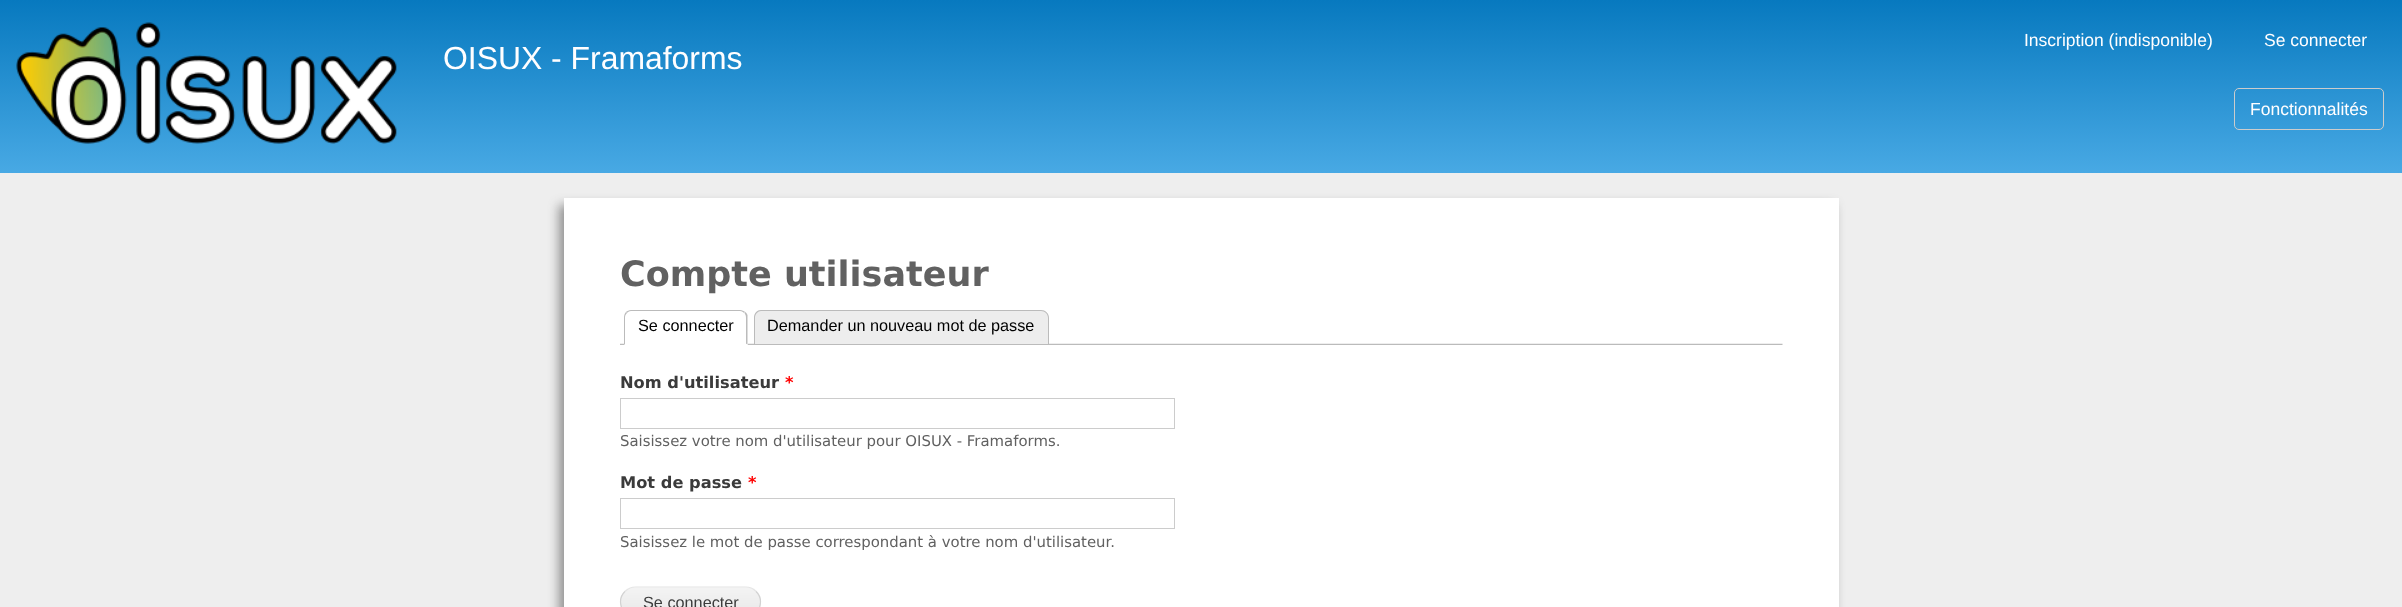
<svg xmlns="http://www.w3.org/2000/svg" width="2402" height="607">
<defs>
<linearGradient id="g1" gradientUnits="userSpaceOnUse" x1="1201" y1="0" x2="1201" y2="173"><stop offset="0" stop-color="#0779bf"/><stop offset="1" stop-color="#48a9e4"/></linearGradient>
</defs>
<rect width="100%" height="100%" fill="#eee"/>
<rect width="2402" height="173" fill="url(#g1)"/>
<image x="16" y="22" width="381" height="122" href="media/1.png"/>
<text x="443" y="69" style="font-family:Liberation Sans;font-size:31.9px;fill:#fffeff">OISUX - Framaforms</text>
<text x="2024" y="46" style="font-family:Liberation Sans;font-size:17.5px;fill:#fffeff">Inscription (indisponible)</text>
<text x="2264" y="46" style="font-family:Liberation Sans;font-size:17.5px;fill:#fffeff">Se connecter</text>
<rect x="2234.5" y="88.5" width="149" height="41" rx="4.5" fill="none" stroke="#ccc"/>
<text x="2250" y="115" style="font-family:Liberation Sans;font-size:17.5px;fill:#fffeff">Fonctionnalités</text>
<rect x="559" y="205" width="1275" height="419" fill="#32323280" filter="blur(5.5px)"/>
<rect x="564" y="198" width="1275" height="409" fill="#fff"/>
<text x="620" y="286" style="font-family:DejaVu Sans;font-size:35px;font-weight:bold;fill:#616161">Compte utilisateur</text>
<image x="620" y="343" width="1163" height="2" href="media/2.png"/>
<path d="M632 310h108c4.5 0 8 3.5 8 8v27h-124v-27c0-4.5 3.5-8 8-8z" fill="#fff"/>
<path d="M631 310c-2 0-4 1-5 2l1 1c1-1 2-2 4-2h109c2 0 3 1 4 2l1-1c-1-1-3-2-5-2z" fill="#bbb"/>
<path d="M747.5 315v30l-1.5-1.5v-25.5c0-2-.5-3.5-1.5-5l1-1c1 1 1.5 2 2 3z" fill="#bbb"/>
<path d="M748 345l-2-1h-121l-1 1z" fill="#fff"/>
<path d="M626 312c-1.5 1.5-2 3.5-2 6v27l1-1v-26c0-2 .5-3.5 2-5z" fill="#bbb"/>
<text x="638" y="331" style="font-family:Liberation Sans;font-size:16.25px;fill:#000">Se connecter</text>
<path d="M762 310h279c4.5 0 8 3.5 8 8v26h-295v-26c0-4.5 3.5-8 8-8z" fill="#ededed"/>
<path d="M761 310h280c4 0 8 3 8 8v26h-295v-26c0-5 3-8 7-8zm0 1h280c4 0 7 3 7 7v26h-293v-26c0-4 3-7 6-7z" fill="#bbb" fill-rule="evenodd"/>
<text x="767" y="331" style="font-family:Liberation Sans;font-size:16.25px;fill:#000">Demander un nouveau mot de passe</text>
<text x="620" y="388" style="font-family:DejaVu Sans;font-size:16.25px;font-weight:bold;fill:#3b3b3b">Nom d'utilisateur</text>
<text x="785" y="388" style="font-family:DejaVu Sans;font-size:16.25px;font-weight:bold;fill:#f00">*</text>
<rect x="620.5" y="398.5" width="554" height="30" fill="none" stroke="#ccc"/>
<text x="620" y="446" style="font-family:DejaVu Sans;font-size:14.9px;fill:#616161">Saisissez votre nom d'utilisateur pour OISUX - Framaforms.</text>
<text x="620" y="488" style="font-family:DejaVu Sans;font-size:16.25px;font-weight:bold;fill:#3b3b3b">Mot de passe</text>
<text x="748" y="488" style="font-family:DejaVu Sans;font-size:16.25px;font-weight:bold;fill:#f00">*</text>
<rect x="620.5" y="498.5" width="554" height="30" fill="none" stroke="#ccc"/>
<text x="620" y="547" style="font-family:DejaVu Sans;font-size:14.9px;fill:#616161">Saisissez le mot de passe correspondant à votre nom d'utilisateur.</text>
<image x="620" y="587" width="141" height="20" href="media/3.png"/>
<path d="M625 591.5c3-3 6.5-4.5 10.5-4.5h110c4 0 8 1.5 10.5 4.5" fill="none" stroke="#e4e4e4" stroke-width="1.2"/>
<path d="M756 591.5c6 5.5 6 15 0 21" fill="none" stroke="#d2d2d2" stroke-width="1.2"/>
<path d="M625 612.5c-6-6-6-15.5 0-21" fill="none" stroke="#d2d2d2" stroke-width="1.2"/>
<text x="643" y="608" style="font-family:Liberation Sans;font-size:16.25px;fill:#3b3b3b">Se connecter</text>
</svg>
